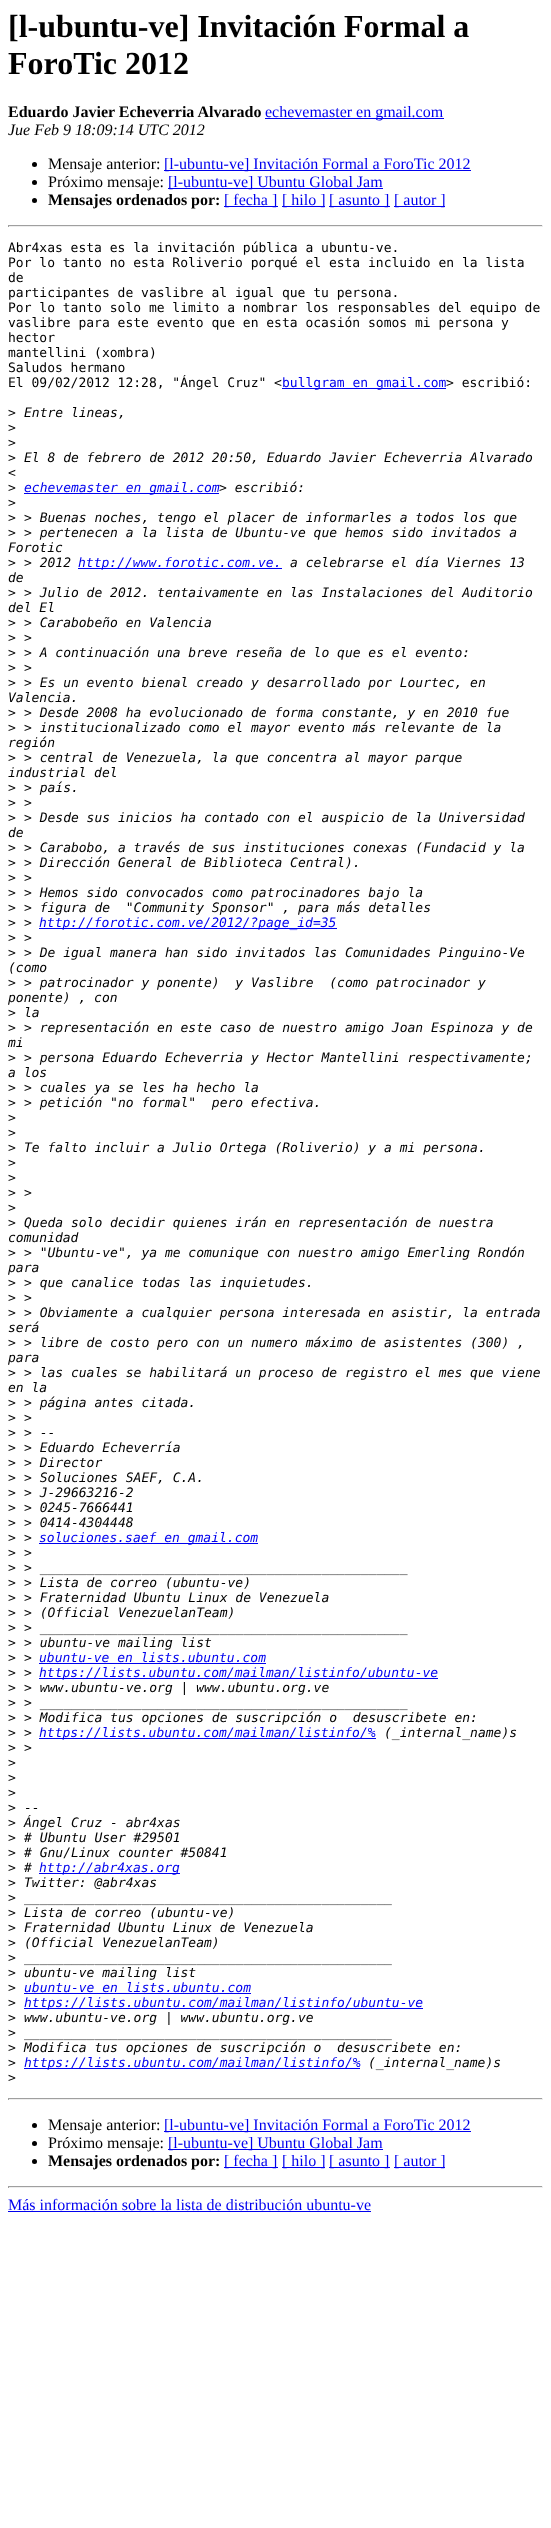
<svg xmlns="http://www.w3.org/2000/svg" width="551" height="2528">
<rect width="100%" height="100%" fill="#fff"/>
<text x="8" y="37" style="font-family:Liberation Serif;font-size:32px;font-weight:bold;fill:#000">[l-ubuntu-ve] Invitación Formal a</text>
<text x="8" y="74" style="font-family:Liberation Serif;font-size:32px;font-weight:bold;fill:#000">ForoTic 2012</text>
<text x="8" y="117" style="font-family:Liberation Serif;font-size:16px;font-weight:bold;fill:#000">Eduardo Javier Echeverria Alvarado</text>
<rect x="265" y="118" width="179" height="1" fill="#00e"/>
<text x="265" y="117" style="font-family:Liberation Serif;font-size:16px;fill:#00e">echevemaster en gmail.com</text>
<text x="8" y="135" style="font-family:Liberation Serif;font-size:16px;font-style:italic;fill:#000">Jue Feb 9 18:09:14 UTC 2012</text>
<circle cx="34.5" cy="164.5" r="2.5" fill="#000"/>
<text x="48" y="169" style="font-family:Liberation Serif;font-size:16px;fill:#000">Mensaje anterior:</text>
<rect x="164" y="170" width="307" height="1" fill="#00e"/>
<text x="164" y="169" style="font-family:Liberation Serif;font-size:16px;fill:#00e">[l-ubuntu-ve] Invitación Formal a ForoTic 2012</text>
<circle cx="34.5" cy="182.5" r="2.5" fill="#000"/>
<text x="48" y="187" style="font-family:Liberation Serif;font-size:16px;fill:#000">Próximo mensaje:</text>
<rect x="168" y="188" width="215" height="1" fill="#00e"/>
<text x="168" y="187" style="font-family:Liberation Serif;font-size:16px;fill:#00e">[l-ubuntu-ve] Ubuntu Global Jam</text>
<circle cx="34.5" cy="200.5" r="2.5" fill="#000"/>
<text x="48" y="205" style="font-family:Liberation Serif;font-size:16px;font-weight:bold;fill:#000">Mensajes ordenados por:</text>
<rect x="224" y="206" width="54" height="1" fill="#00e"/>
<text x="224" y="205" style="font-family:Liberation Serif;font-size:16px;fill:#00e">[ fecha ]</text>
<rect x="282" y="206" width="43" height="1" fill="#00e"/>
<text x="282" y="205" style="font-family:Liberation Serif;font-size:16px;fill:#00e">[ hilo ]</text>
<rect x="329" y="206" width="61" height="1" fill="#00e"/>
<text x="329" y="205" style="font-family:Liberation Serif;font-size:16px;fill:#00e">[ asunto ]</text>
<rect x="394" y="206" width="51" height="1" fill="#00e"/>
<text x="394" y="205" style="font-family:Liberation Serif;font-size:16px;fill:#00e">[ autor ]</text>
<rect x="8" y="225" width="535" height="1" fill="#9f9f9f"/>
<rect x="542" y="225" width="1" height="2" fill="#eee"/>
<rect x="8" y="226" width="535" height="1" fill="#eee"/>
<rect x="8" y="225" width="1" height="2" fill="#9f9f9f"/>
<text x="8" y="252" style="font-family:DejaVu Sans Mono;font-size:13px;fill:#000">Abr4xas esta es la invitación pública a ubuntu-ve.</text>
<text x="8" y="267" style="font-family:DejaVu Sans Mono;font-size:13px;fill:#000">Por lo tanto no esta Roliverio porqué el esta incluido en la lista</text>
<text x="8" y="282" style="font-family:DejaVu Sans Mono;font-size:13px;fill:#000">de</text>
<text x="8" y="297" style="font-family:DejaVu Sans Mono;font-size:13px;fill:#000">participantes de vaslibre al igual que tu persona.</text>
<text x="8" y="312" style="font-family:DejaVu Sans Mono;font-size:13px;fill:#000">Por lo tanto solo me limito a nombrar los responsables del equipo de</text>
<text x="8" y="327" style="font-family:DejaVu Sans Mono;font-size:13px;fill:#000">vaslibre para este evento que en esta ocasión somos mi persona y</text>
<text x="8" y="342" style="font-family:DejaVu Sans Mono;font-size:13px;fill:#000">hector</text>
<text x="8" y="357" style="font-family:DejaVu Sans Mono;font-size:13px;fill:#000">mantellini (xombra)</text>
<text x="8" y="372" style="font-family:DejaVu Sans Mono;font-size:13px;fill:#000">Saludos hermano</text>
<text x="8" y="387" style="font-family:DejaVu Sans Mono;font-size:13px;fill:#000">El 09/02/2012 12:28, "Ángel Cruz" &lt;</text>
<rect x="282" y="388" width="164" height="1" fill="#00e"/>
<text x="282" y="387" style="font-family:DejaVu Sans Mono;font-size:13px;fill:#00e">bullgram en gmail.com</text>
<text x="446" y="387" style="font-family:DejaVu Sans Mono;font-size:13px;fill:#000">&gt; escribió:</text>
<text x="8" y="417" style="font-family:DejaVu Sans Mono;font-size:13px;fill:#000">&gt;</text>
<text x="24" y="417" style="font-family:DejaVu Sans Mono;font-size:13px;font-style:italic;fill:#000">Entre lineas,</text>
<text x="8" y="432" style="font-family:DejaVu Sans Mono;font-size:13px;fill:#000">&gt;</text>
<text x="8" y="447" style="font-family:DejaVu Sans Mono;font-size:13px;fill:#000">&gt;</text>
<text x="8" y="462" style="font-family:DejaVu Sans Mono;font-size:13px;fill:#000">&gt;</text>
<text x="24" y="462" style="font-family:DejaVu Sans Mono;font-size:13px;font-style:italic;fill:#000">El 8 de febrero de 2012 20:50, Eduardo Javier Echeverria Alvarado</text>
<text x="8" y="477" style="font-family:DejaVu Sans Mono;font-size:13px;font-style:italic;fill:#000">&lt;</text>
<text x="8" y="492" style="font-family:DejaVu Sans Mono;font-size:13px;fill:#000">&gt;</text>
<rect x="24" y="493" width="195" height="1" fill="#00e"/>
<text x="24" y="492" style="font-family:DejaVu Sans Mono;font-size:13px;font-style:italic;fill:#00e">echevemaster en gmail.com</text>
<text x="219" y="492" style="font-family:DejaVu Sans Mono;font-size:13px;font-style:italic;fill:#000">&gt; escribió:</text>
<text x="8" y="507" style="font-family:DejaVu Sans Mono;font-size:13px;fill:#000">&gt;</text>
<text x="8" y="522" style="font-family:DejaVu Sans Mono;font-size:13px;fill:#000">&gt;</text>
<text x="24" y="522" style="font-family:DejaVu Sans Mono;font-size:13px;font-style:italic;fill:#000">&gt; Buenas noches, tengo el placer de informarles a todos los que</text>
<text x="8" y="537" style="font-family:DejaVu Sans Mono;font-size:13px;fill:#000">&gt;</text>
<text x="24" y="537" style="font-family:DejaVu Sans Mono;font-size:13px;font-style:italic;fill:#000">&gt; pertenecen a la lista de Ubuntu-ve que hemos sido invitados a</text>
<text x="8" y="552" style="font-family:DejaVu Sans Mono;font-size:13px;font-style:italic;fill:#000">Forotic</text>
<text x="8" y="567" style="font-family:DejaVu Sans Mono;font-size:13px;fill:#000">&gt;</text>
<text x="24" y="567" style="font-family:DejaVu Sans Mono;font-size:13px;font-style:italic;fill:#000">&gt; 2012</text>
<rect x="78" y="568" width="204" height="1" fill="#00e"/>
<text x="78" y="567" style="font-family:DejaVu Sans Mono;font-size:13px;font-style:italic;fill:#00e">http://www.forotic.com.ve.</text>
<text x="290" y="567" style="font-family:DejaVu Sans Mono;font-size:13px;font-style:italic;fill:#000">a celebrarse el día Viernes 13</text>
<text x="8" y="582" style="font-family:DejaVu Sans Mono;font-size:13px;font-style:italic;fill:#000">de</text>
<text x="8" y="597" style="font-family:DejaVu Sans Mono;font-size:13px;fill:#000">&gt;</text>
<text x="24" y="597" style="font-family:DejaVu Sans Mono;font-size:13px;font-style:italic;fill:#000">&gt; Julio de 2012. tentaivamente en las Instalaciones del Auditorio</text>
<text x="8" y="612" style="font-family:DejaVu Sans Mono;font-size:13px;font-style:italic;fill:#000">del El</text>
<text x="8" y="627" style="font-family:DejaVu Sans Mono;font-size:13px;fill:#000">&gt;</text>
<text x="24" y="627" style="font-family:DejaVu Sans Mono;font-size:13px;font-style:italic;fill:#000">&gt; Carabobeño en Valencia</text>
<text x="8" y="642" style="font-family:DejaVu Sans Mono;font-size:13px;fill:#000">&gt;</text>
<text x="24" y="642" style="font-family:DejaVu Sans Mono;font-size:13px;font-style:italic;fill:#000">&gt;</text>
<text x="8" y="657" style="font-family:DejaVu Sans Mono;font-size:13px;fill:#000">&gt;</text>
<text x="24" y="657" style="font-family:DejaVu Sans Mono;font-size:13px;font-style:italic;fill:#000">&gt; A continuación una breve reseña de lo que es el evento:</text>
<text x="8" y="672" style="font-family:DejaVu Sans Mono;font-size:13px;fill:#000">&gt;</text>
<text x="24" y="672" style="font-family:DejaVu Sans Mono;font-size:13px;font-style:italic;fill:#000">&gt;</text>
<text x="8" y="687" style="font-family:DejaVu Sans Mono;font-size:13px;fill:#000">&gt;</text>
<text x="24" y="687" style="font-family:DejaVu Sans Mono;font-size:13px;font-style:italic;fill:#000">&gt; Es un evento bienal creado y desarrollado por Lourtec, en</text>
<text x="8" y="702" style="font-family:DejaVu Sans Mono;font-size:13px;font-style:italic;fill:#000">Valencia.</text>
<text x="8" y="717" style="font-family:DejaVu Sans Mono;font-size:13px;fill:#000">&gt;</text>
<text x="24" y="717" style="font-family:DejaVu Sans Mono;font-size:13px;font-style:italic;fill:#000">&gt; Desde 2008 ha evolucionado de forma constante, y en 2010 fue</text>
<text x="8" y="732" style="font-family:DejaVu Sans Mono;font-size:13px;fill:#000">&gt;</text>
<text x="24" y="732" style="font-family:DejaVu Sans Mono;font-size:13px;font-style:italic;fill:#000">&gt; institucionalizado como el mayor evento más relevante de la</text>
<text x="8" y="747" style="font-family:DejaVu Sans Mono;font-size:13px;font-style:italic;fill:#000">región</text>
<text x="8" y="762" style="font-family:DejaVu Sans Mono;font-size:13px;fill:#000">&gt;</text>
<text x="24" y="762" style="font-family:DejaVu Sans Mono;font-size:13px;font-style:italic;fill:#000">&gt; central de Venezuela, la que concentra al mayor parque</text>
<text x="8" y="777" style="font-family:DejaVu Sans Mono;font-size:13px;font-style:italic;fill:#000">industrial del</text>
<text x="8" y="792" style="font-family:DejaVu Sans Mono;font-size:13px;fill:#000">&gt;</text>
<text x="24" y="792" style="font-family:DejaVu Sans Mono;font-size:13px;font-style:italic;fill:#000">&gt; país.</text>
<text x="8" y="807" style="font-family:DejaVu Sans Mono;font-size:13px;fill:#000">&gt;</text>
<text x="24" y="807" style="font-family:DejaVu Sans Mono;font-size:13px;font-style:italic;fill:#000">&gt;</text>
<text x="8" y="822" style="font-family:DejaVu Sans Mono;font-size:13px;fill:#000">&gt;</text>
<text x="24" y="822" style="font-family:DejaVu Sans Mono;font-size:13px;font-style:italic;fill:#000">&gt; Desde sus inicios ha contado con el auspicio de la Universidad</text>
<text x="8" y="837" style="font-family:DejaVu Sans Mono;font-size:13px;font-style:italic;fill:#000">de</text>
<text x="8" y="852" style="font-family:DejaVu Sans Mono;font-size:13px;fill:#000">&gt;</text>
<text x="24" y="852" style="font-family:DejaVu Sans Mono;font-size:13px;font-style:italic;fill:#000">&gt; Carabobo, a través de sus instituciones conexas (Fundacid y la</text>
<text x="8" y="867" style="font-family:DejaVu Sans Mono;font-size:13px;fill:#000">&gt;</text>
<text x="24" y="867" style="font-family:DejaVu Sans Mono;font-size:13px;font-style:italic;fill:#000">&gt; Dirección General de Biblioteca Central).</text>
<text x="8" y="882" style="font-family:DejaVu Sans Mono;font-size:13px;fill:#000">&gt;</text>
<text x="24" y="882" style="font-family:DejaVu Sans Mono;font-size:13px;font-style:italic;fill:#000">&gt;</text>
<text x="8" y="897" style="font-family:DejaVu Sans Mono;font-size:13px;fill:#000">&gt;</text>
<text x="24" y="897" style="font-family:DejaVu Sans Mono;font-size:13px;font-style:italic;fill:#000">&gt; Hemos sido convocados como patrocinadores bajo la</text>
<text x="8" y="912" style="font-family:DejaVu Sans Mono;font-size:13px;fill:#000">&gt;</text>
<text x="24" y="912" style="font-family:DejaVu Sans Mono;font-size:13px;font-style:italic;fill:#000" xml:space="preserve">&gt; figura de  "Community Sponsor" , para más detalles</text>
<text x="8" y="927" style="font-family:DejaVu Sans Mono;font-size:13px;fill:#000">&gt;</text>
<text x="24" y="927" style="font-family:DejaVu Sans Mono;font-size:13px;font-style:italic;fill:#000">&gt;</text>
<rect x="39" y="928" width="298" height="1" fill="#00e"/>
<text x="39" y="927" style="font-family:DejaVu Sans Mono;font-size:13px;font-style:italic;fill:#00e">http://forotic.com.ve/2012/?page_id=35</text>
<text x="8" y="942" style="font-family:DejaVu Sans Mono;font-size:13px;fill:#000">&gt;</text>
<text x="24" y="942" style="font-family:DejaVu Sans Mono;font-size:13px;font-style:italic;fill:#000">&gt;</text>
<text x="8" y="957" style="font-family:DejaVu Sans Mono;font-size:13px;fill:#000">&gt;</text>
<text x="24" y="957" style="font-family:DejaVu Sans Mono;font-size:13px;font-style:italic;fill:#000">&gt; De igual manera han sido invitados las Comunidades Pinguino-Ve</text>
<text x="8" y="972" style="font-family:DejaVu Sans Mono;font-size:13px;font-style:italic;fill:#000">(como</text>
<text x="8" y="987" style="font-family:DejaVu Sans Mono;font-size:13px;fill:#000">&gt;</text>
<text x="24" y="987" style="font-family:DejaVu Sans Mono;font-size:13px;font-style:italic;fill:#000" xml:space="preserve">&gt; patrocinador y ponente)  y Vaslibre  (como patrocinador y</text>
<text x="8" y="1002" style="font-family:DejaVu Sans Mono;font-size:13px;font-style:italic;fill:#000">ponente) , con</text>
<text x="8" y="1017" style="font-family:DejaVu Sans Mono;font-size:13px;fill:#000">&gt;</text>
<text x="24" y="1017" style="font-family:DejaVu Sans Mono;font-size:13px;font-style:italic;fill:#000">la</text>
<text x="8" y="1032" style="font-family:DejaVu Sans Mono;font-size:13px;fill:#000">&gt;</text>
<text x="24" y="1032" style="font-family:DejaVu Sans Mono;font-size:13px;font-style:italic;fill:#000">&gt; representación en este caso de nuestro amigo Joan Espinoza y de</text>
<text x="8" y="1047" style="font-family:DejaVu Sans Mono;font-size:13px;font-style:italic;fill:#000">mi</text>
<text x="8" y="1062" style="font-family:DejaVu Sans Mono;font-size:13px;fill:#000">&gt;</text>
<text x="24" y="1062" style="font-family:DejaVu Sans Mono;font-size:13px;font-style:italic;fill:#000">&gt; persona Eduardo Echeverria y Hector Mantellini respectivamente;</text>
<text x="8" y="1077" style="font-family:DejaVu Sans Mono;font-size:13px;font-style:italic;fill:#000">a los</text>
<text x="8" y="1092" style="font-family:DejaVu Sans Mono;font-size:13px;fill:#000">&gt;</text>
<text x="24" y="1092" style="font-family:DejaVu Sans Mono;font-size:13px;font-style:italic;fill:#000">&gt; cuales ya se les ha hecho la</text>
<text x="8" y="1107" style="font-family:DejaVu Sans Mono;font-size:13px;fill:#000">&gt;</text>
<text x="24" y="1107" style="font-family:DejaVu Sans Mono;font-size:13px;font-style:italic;fill:#000" xml:space="preserve">&gt; petición "no formal"  pero efectiva.</text>
<text x="8" y="1122" style="font-family:DejaVu Sans Mono;font-size:13px;fill:#000">&gt;</text>
<text x="8" y="1137" style="font-family:DejaVu Sans Mono;font-size:13px;fill:#000">&gt;</text>
<text x="8" y="1152" style="font-family:DejaVu Sans Mono;font-size:13px;fill:#000">&gt;</text>
<text x="24" y="1152" style="font-family:DejaVu Sans Mono;font-size:13px;font-style:italic;fill:#000">Te falto incluir a Julio Ortega (Roliverio) y a mi persona.</text>
<text x="8" y="1167" style="font-family:DejaVu Sans Mono;font-size:13px;fill:#000">&gt;</text>
<text x="8" y="1182" style="font-family:DejaVu Sans Mono;font-size:13px;fill:#000">&gt;</text>
<text x="8" y="1197" style="font-family:DejaVu Sans Mono;font-size:13px;fill:#000">&gt;</text>
<text x="24" y="1197" style="font-family:DejaVu Sans Mono;font-size:13px;font-style:italic;fill:#000">&gt;</text>
<text x="8" y="1212" style="font-family:DejaVu Sans Mono;font-size:13px;fill:#000">&gt;</text>
<text x="8" y="1227" style="font-family:DejaVu Sans Mono;font-size:13px;fill:#000">&gt;</text>
<text x="24" y="1227" style="font-family:DejaVu Sans Mono;font-size:13px;font-style:italic;fill:#000">Queda solo decidir quienes irán en representación de nuestra</text>
<text x="8" y="1242" style="font-family:DejaVu Sans Mono;font-size:13px;font-style:italic;fill:#000">comunidad</text>
<text x="8" y="1257" style="font-family:DejaVu Sans Mono;font-size:13px;fill:#000">&gt;</text>
<text x="24" y="1257" style="font-family:DejaVu Sans Mono;font-size:13px;font-style:italic;fill:#000">&gt; "Ubuntu-ve", ya me comunique con nuestro amigo Emerling Rondón</text>
<text x="8" y="1272" style="font-family:DejaVu Sans Mono;font-size:13px;font-style:italic;fill:#000">para</text>
<text x="8" y="1287" style="font-family:DejaVu Sans Mono;font-size:13px;fill:#000">&gt;</text>
<text x="24" y="1287" style="font-family:DejaVu Sans Mono;font-size:13px;font-style:italic;fill:#000">&gt; que canalice todas las inquietudes.</text>
<text x="8" y="1302" style="font-family:DejaVu Sans Mono;font-size:13px;fill:#000">&gt;</text>
<text x="24" y="1302" style="font-family:DejaVu Sans Mono;font-size:13px;font-style:italic;fill:#000">&gt;</text>
<text x="8" y="1317" style="font-family:DejaVu Sans Mono;font-size:13px;fill:#000">&gt;</text>
<text x="24" y="1317" style="font-family:DejaVu Sans Mono;font-size:13px;font-style:italic;fill:#000">&gt; Obviamente a cualquier persona interesada en asistir, la entrada</text>
<text x="8" y="1332" style="font-family:DejaVu Sans Mono;font-size:13px;font-style:italic;fill:#000">será</text>
<text x="8" y="1347" style="font-family:DejaVu Sans Mono;font-size:13px;fill:#000">&gt;</text>
<text x="24" y="1347" style="font-family:DejaVu Sans Mono;font-size:13px;font-style:italic;fill:#000">&gt; libre de costo pero con un numero máximo de asistentes (300) ,</text>
<text x="8" y="1362" style="font-family:DejaVu Sans Mono;font-size:13px;font-style:italic;fill:#000">para</text>
<text x="8" y="1377" style="font-family:DejaVu Sans Mono;font-size:13px;fill:#000">&gt;</text>
<text x="24" y="1377" style="font-family:DejaVu Sans Mono;font-size:13px;font-style:italic;fill:#000">&gt; las cuales se habilitará un proceso de registro el mes que viene</text>
<text x="8" y="1392" style="font-family:DejaVu Sans Mono;font-size:13px;font-style:italic;fill:#000">en la</text>
<text x="8" y="1407" style="font-family:DejaVu Sans Mono;font-size:13px;fill:#000">&gt;</text>
<text x="24" y="1407" style="font-family:DejaVu Sans Mono;font-size:13px;font-style:italic;fill:#000">&gt; página antes citada.</text>
<text x="8" y="1422" style="font-family:DejaVu Sans Mono;font-size:13px;fill:#000">&gt;</text>
<text x="24" y="1422" style="font-family:DejaVu Sans Mono;font-size:13px;font-style:italic;fill:#000">&gt;</text>
<text x="8" y="1437" style="font-family:DejaVu Sans Mono;font-size:13px;fill:#000">&gt;</text>
<text x="24" y="1437" style="font-family:DejaVu Sans Mono;font-size:13px;font-style:italic;fill:#000">&gt; --</text>
<text x="8" y="1452" style="font-family:DejaVu Sans Mono;font-size:13px;fill:#000">&gt;</text>
<text x="24" y="1452" style="font-family:DejaVu Sans Mono;font-size:13px;font-style:italic;fill:#000">&gt; Eduardo Echeverría</text>
<text x="8" y="1467" style="font-family:DejaVu Sans Mono;font-size:13px;fill:#000">&gt;</text>
<text x="24" y="1467" style="font-family:DejaVu Sans Mono;font-size:13px;font-style:italic;fill:#000">&gt; Director</text>
<text x="8" y="1482" style="font-family:DejaVu Sans Mono;font-size:13px;fill:#000">&gt;</text>
<text x="24" y="1482" style="font-family:DejaVu Sans Mono;font-size:13px;font-style:italic;fill:#000">&gt; Soluciones SAEF, C.A.</text>
<text x="8" y="1497" style="font-family:DejaVu Sans Mono;font-size:13px;fill:#000">&gt;</text>
<text x="24" y="1497" style="font-family:DejaVu Sans Mono;font-size:13px;font-style:italic;fill:#000">&gt; J-29663216-2</text>
<text x="8" y="1512" style="font-family:DejaVu Sans Mono;font-size:13px;fill:#000">&gt;</text>
<text x="24" y="1512" style="font-family:DejaVu Sans Mono;font-size:13px;font-style:italic;fill:#000">&gt; 0245-7666441</text>
<text x="8" y="1527" style="font-family:DejaVu Sans Mono;font-size:13px;fill:#000">&gt;</text>
<text x="24" y="1527" style="font-family:DejaVu Sans Mono;font-size:13px;font-style:italic;fill:#000">&gt; 0414-4304448</text>
<text x="8" y="1542" style="font-family:DejaVu Sans Mono;font-size:13px;fill:#000">&gt;</text>
<text x="24" y="1542" style="font-family:DejaVu Sans Mono;font-size:13px;font-style:italic;fill:#000">&gt;</text>
<rect x="39" y="1543" width="219" height="1" fill="#00e"/>
<text x="39" y="1542" style="font-family:DejaVu Sans Mono;font-size:13px;font-style:italic;fill:#00e">soluciones.saef en gmail.com</text>
<text x="8" y="1557" style="font-family:DejaVu Sans Mono;font-size:13px;fill:#000">&gt;</text>
<text x="24" y="1557" style="font-family:DejaVu Sans Mono;font-size:13px;font-style:italic;fill:#000">&gt;</text>
<text x="8" y="1572" style="font-family:DejaVu Sans Mono;font-size:13px;fill:#000">&gt;</text>
<text x="24" y="1572" style="font-family:DejaVu Sans Mono;font-size:13px;font-style:italic;fill:#000">&gt; _______________________________________________</text>
<text x="8" y="1587" style="font-family:DejaVu Sans Mono;font-size:13px;fill:#000">&gt;</text>
<text x="24" y="1587" style="font-family:DejaVu Sans Mono;font-size:13px;font-style:italic;fill:#000">&gt; Lista de correo (ubuntu-ve)</text>
<text x="8" y="1602" style="font-family:DejaVu Sans Mono;font-size:13px;fill:#000">&gt;</text>
<text x="24" y="1602" style="font-family:DejaVu Sans Mono;font-size:13px;font-style:italic;fill:#000">&gt; Fraternidad Ubuntu Linux de Venezuela</text>
<text x="8" y="1617" style="font-family:DejaVu Sans Mono;font-size:13px;fill:#000">&gt;</text>
<text x="24" y="1617" style="font-family:DejaVu Sans Mono;font-size:13px;font-style:italic;fill:#000">&gt; (Official VenezuelanTeam)</text>
<text x="8" y="1632" style="font-family:DejaVu Sans Mono;font-size:13px;fill:#000">&gt;</text>
<text x="24" y="1632" style="font-family:DejaVu Sans Mono;font-size:13px;font-style:italic;fill:#000">&gt; _______________________________________________</text>
<text x="8" y="1647" style="font-family:DejaVu Sans Mono;font-size:13px;fill:#000">&gt;</text>
<text x="24" y="1647" style="font-family:DejaVu Sans Mono;font-size:13px;font-style:italic;fill:#000">&gt; ubuntu-ve mailing list</text>
<text x="8" y="1662" style="font-family:DejaVu Sans Mono;font-size:13px;fill:#000">&gt;</text>
<text x="24" y="1662" style="font-family:DejaVu Sans Mono;font-size:13px;font-style:italic;fill:#000">&gt;</text>
<text x="39" y="1662" style="font-family:DejaVu Sans Mono;font-size:13px;font-style:italic;fill:#00e">ubuntu-ve en lists.ubuntu.com</text>
<rect x="39" y="1663" width="227" height="1" fill="#00e"/>
<text x="8" y="1677" style="font-family:DejaVu Sans Mono;font-size:13px;fill:#000">&gt;</text>
<text x="24" y="1677" style="font-family:DejaVu Sans Mono;font-size:13px;font-style:italic;fill:#000">&gt;</text>
<rect x="39" y="1678" width="399" height="1" fill="#00e"/>
<text x="39" y="1677" style="font-family:DejaVu Sans Mono;font-size:13px;font-style:italic;fill:#00e">https://lists.ubuntu.com/mailman/listinfo/ubuntu-ve</text>
<text x="8" y="1692" style="font-family:DejaVu Sans Mono;font-size:13px;fill:#000">&gt;</text>
<text x="24" y="1692" style="font-family:DejaVu Sans Mono;font-size:13px;font-style:italic;fill:#000">&gt; www.ubuntu-ve.org | www.ubuntu.org.ve</text>
<text x="8" y="1707" style="font-family:DejaVu Sans Mono;font-size:13px;fill:#000">&gt;</text>
<text x="24" y="1707" style="font-family:DejaVu Sans Mono;font-size:13px;font-style:italic;fill:#000">&gt; _______________________________________________</text>
<text x="8" y="1722" style="font-family:DejaVu Sans Mono;font-size:13px;fill:#000">&gt;</text>
<text x="24" y="1722" style="font-family:DejaVu Sans Mono;font-size:13px;font-style:italic;fill:#000" xml:space="preserve">&gt; Modifica tus opciones de suscripción o  desuscribete en:</text>
<text x="8" y="1737" style="font-family:DejaVu Sans Mono;font-size:13px;fill:#000">&gt;</text>
<text x="24" y="1737" style="font-family:DejaVu Sans Mono;font-size:13px;font-style:italic;fill:#000">&gt;</text>
<rect x="39" y="1738" width="337" height="1" fill="#00e"/>
<text x="39" y="1737" style="font-family:DejaVu Sans Mono;font-size:13px;font-style:italic;fill:#00e">https://lists.ubuntu.com/mailman/listinfo/%</text>
<text x="384" y="1737" style="font-family:DejaVu Sans Mono;font-size:13px;font-style:italic;fill:#000">(_internal_name)s</text>
<text x="8" y="1752" style="font-family:DejaVu Sans Mono;font-size:13px;fill:#000">&gt;</text>
<text x="24" y="1752" style="font-family:DejaVu Sans Mono;font-size:13px;font-style:italic;fill:#000">&gt;</text>
<text x="8" y="1767" style="font-family:DejaVu Sans Mono;font-size:13px;fill:#000">&gt;</text>
<text x="8" y="1782" style="font-family:DejaVu Sans Mono;font-size:13px;fill:#000">&gt;</text>
<text x="8" y="1797" style="font-family:DejaVu Sans Mono;font-size:13px;fill:#000">&gt;</text>
<text x="8" y="1812" style="font-family:DejaVu Sans Mono;font-size:13px;fill:#000">&gt;</text>
<text x="24" y="1812" style="font-family:DejaVu Sans Mono;font-size:13px;font-style:italic;fill:#000">--</text>
<text x="8" y="1827" style="font-family:DejaVu Sans Mono;font-size:13px;fill:#000">&gt;</text>
<text x="24" y="1827" style="font-family:DejaVu Sans Mono;font-size:13px;font-style:italic;fill:#000">Ángel Cruz - abr4xas</text>
<text x="8" y="1842" style="font-family:DejaVu Sans Mono;font-size:13px;fill:#000">&gt;</text>
<text x="24" y="1842" style="font-family:DejaVu Sans Mono;font-size:13px;font-style:italic;fill:#000"># Ubuntu User #29501</text>
<text x="8" y="1857" style="font-family:DejaVu Sans Mono;font-size:13px;fill:#000">&gt;</text>
<text x="24" y="1857" style="font-family:DejaVu Sans Mono;font-size:13px;font-style:italic;fill:#000"># Gnu/Linux counter #50841</text>
<text x="8" y="1872" style="font-family:DejaVu Sans Mono;font-size:13px;fill:#000">&gt;</text>
<text x="24" y="1872" style="font-family:DejaVu Sans Mono;font-size:13px;font-style:italic;fill:#000">#</text>
<rect x="39" y="1873" width="141" height="1" fill="#00e"/>
<text x="39" y="1872" style="font-family:DejaVu Sans Mono;font-size:13px;font-style:italic;fill:#00e">http://abr4xas.org</text>
<text x="8" y="1887" style="font-family:DejaVu Sans Mono;font-size:13px;fill:#000">&gt;</text>
<text x="24" y="1887" style="font-family:DejaVu Sans Mono;font-size:13px;font-style:italic;fill:#000">Twitter: @abr4xas</text>
<text x="8" y="1902" style="font-family:DejaVu Sans Mono;font-size:13px;fill:#000">&gt;</text>
<text x="24" y="1902" style="font-family:DejaVu Sans Mono;font-size:13px;font-style:italic;fill:#000">_______________________________________________</text>
<text x="8" y="1917" style="font-family:DejaVu Sans Mono;font-size:13px;fill:#000">&gt;</text>
<text x="24" y="1917" style="font-family:DejaVu Sans Mono;font-size:13px;font-style:italic;fill:#000">Lista de correo (ubuntu-ve)</text>
<text x="8" y="1932" style="font-family:DejaVu Sans Mono;font-size:13px;fill:#000">&gt;</text>
<text x="24" y="1932" style="font-family:DejaVu Sans Mono;font-size:13px;font-style:italic;fill:#000">Fraternidad Ubuntu Linux de Venezuela</text>
<text x="8" y="1947" style="font-family:DejaVu Sans Mono;font-size:13px;fill:#000">&gt;</text>
<text x="24" y="1947" style="font-family:DejaVu Sans Mono;font-size:13px;font-style:italic;fill:#000">(Official VenezuelanTeam)</text>
<text x="8" y="1962" style="font-family:DejaVu Sans Mono;font-size:13px;fill:#000">&gt;</text>
<text x="24" y="1962" style="font-family:DejaVu Sans Mono;font-size:13px;font-style:italic;fill:#000">_______________________________________________</text>
<text x="8" y="1977" style="font-family:DejaVu Sans Mono;font-size:13px;fill:#000">&gt;</text>
<text x="24" y="1977" style="font-family:DejaVu Sans Mono;font-size:13px;font-style:italic;fill:#000">ubuntu-ve mailing list</text>
<text x="8" y="1992" style="font-family:DejaVu Sans Mono;font-size:13px;fill:#000">&gt;</text>
<text x="24" y="1992" style="font-family:DejaVu Sans Mono;font-size:13px;font-style:italic;fill:#00e">ubuntu-ve en lists.ubuntu.com</text>
<rect x="24" y="1993" width="227" height="1" fill="#00e"/>
<text x="8" y="2007" style="font-family:DejaVu Sans Mono;font-size:13px;fill:#000">&gt;</text>
<rect x="24" y="2008" width="399" height="1" fill="#00e"/>
<text x="24" y="2007" style="font-family:DejaVu Sans Mono;font-size:13px;font-style:italic;fill:#00e">https://lists.ubuntu.com/mailman/listinfo/ubuntu-ve</text>
<text x="8" y="2022" style="font-family:DejaVu Sans Mono;font-size:13px;fill:#000">&gt;</text>
<text x="24" y="2022" style="font-family:DejaVu Sans Mono;font-size:13px;font-style:italic;fill:#000">www.ubuntu-ve.org | www.ubuntu.org.ve</text>
<text x="8" y="2037" style="font-family:DejaVu Sans Mono;font-size:13px;fill:#000">&gt;</text>
<text x="24" y="2037" style="font-family:DejaVu Sans Mono;font-size:13px;font-style:italic;fill:#000">_______________________________________________</text>
<text x="8" y="2052" style="font-family:DejaVu Sans Mono;font-size:13px;fill:#000">&gt;</text>
<text x="24" y="2052" style="font-family:DejaVu Sans Mono;font-size:13px;font-style:italic;fill:#000" xml:space="preserve">Modifica tus opciones de suscripción o  desuscribete en:</text>
<text x="8" y="2067" style="font-family:DejaVu Sans Mono;font-size:13px;fill:#000">&gt;</text>
<rect x="24" y="2068" width="336" height="1" fill="#00e"/>
<text x="24" y="2067" style="font-family:DejaVu Sans Mono;font-size:13px;font-style:italic;fill:#00e">https://lists.ubuntu.com/mailman/listinfo/%</text>
<text x="368" y="2067" style="font-family:DejaVu Sans Mono;font-size:13px;font-style:italic;fill:#000">(_internal_name)s</text>
<text x="8" y="2082" style="font-family:DejaVu Sans Mono;font-size:13px;fill:#000">&gt;</text>
<rect x="8" y="2098" width="535" height="1" fill="#9f9f9f"/>
<rect x="542" y="2098" width="1" height="2" fill="#eee"/>
<rect x="8" y="2099" width="535" height="1" fill="#eee"/>
<rect x="8" y="2098" width="1" height="2" fill="#9f9f9f"/>
<circle cx="34.5" cy="2125.5" r="2.5" fill="#000"/>
<text x="48" y="2130" style="font-family:Liberation Serif;font-size:16px;fill:#000">Mensaje anterior:</text>
<rect x="164" y="2131" width="307" height="1" fill="#00e"/>
<text x="164" y="2130" style="font-family:Liberation Serif;font-size:16px;fill:#00e">[l-ubuntu-ve] Invitación Formal a ForoTic 2012</text>
<circle cx="34.5" cy="2143.5" r="2.5" fill="#000"/>
<text x="48" y="2148" style="font-family:Liberation Serif;font-size:16px;fill:#000">Próximo mensaje:</text>
<rect x="168" y="2149" width="215" height="1" fill="#00e"/>
<text x="168" y="2148" style="font-family:Liberation Serif;font-size:16px;fill:#00e">[l-ubuntu-ve] Ubuntu Global Jam</text>
<circle cx="34.5" cy="2161.5" r="2.5" fill="#000"/>
<text x="48" y="2166" style="font-family:Liberation Serif;font-size:16px;font-weight:bold;fill:#000">Mensajes ordenados por:</text>
<rect x="224" y="2167" width="54" height="1" fill="#00e"/>
<text x="224" y="2166" style="font-family:Liberation Serif;font-size:16px;fill:#00e">[ fecha ]</text>
<rect x="282" y="2167" width="43" height="1" fill="#00e"/>
<text x="282" y="2166" style="font-family:Liberation Serif;font-size:16px;fill:#00e">[ hilo ]</text>
<rect x="329" y="2167" width="61" height="1" fill="#00e"/>
<text x="329" y="2166" style="font-family:Liberation Serif;font-size:16px;fill:#00e">[ asunto ]</text>
<rect x="394" y="2167" width="51" height="1" fill="#00e"/>
<text x="394" y="2166" style="font-family:Liberation Serif;font-size:16px;fill:#00e">[ autor ]</text>
<rect x="8" y="2186" width="535" height="1" fill="#9f9f9f"/>
<rect x="542" y="2186" width="1" height="2" fill="#eee"/>
<rect x="8" y="2187" width="535" height="1" fill="#eee"/>
<rect x="8" y="2186" width="1" height="2" fill="#9f9f9f"/>
<text x="8" y="2210" style="font-family:Liberation Serif;font-size:16px;fill:#00e">Más información sobre la lista de distribución ubuntu-ve</text>
<rect x="8" y="2211" width="363" height="1" fill="#00e"/>
</svg>
